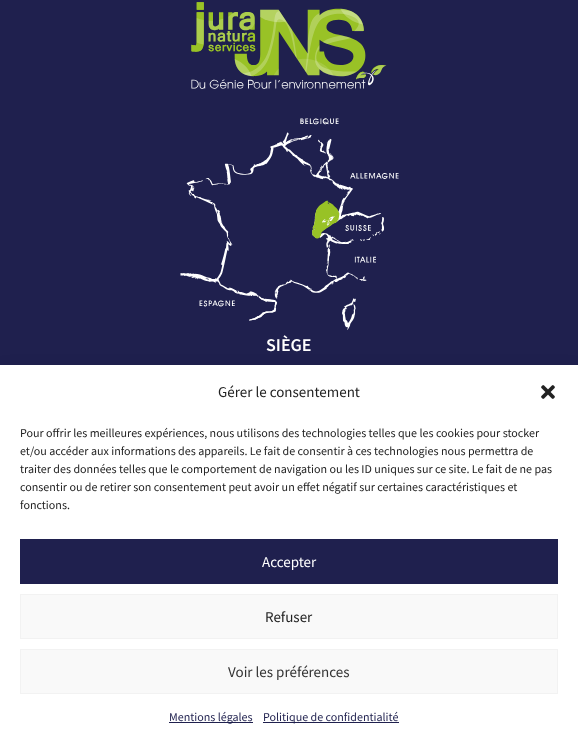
<svg xmlns="http://www.w3.org/2000/svg" width="578" height="744">
<rect width="100%" height="100%" fill="#1f204e"/>
<image x="191" y="2" width="196" height="87" href="media/1.png"/>
<image x="180" y="118" width="219" height="212" href="media/2.png"/>
<text x="266" y="351" style="font-family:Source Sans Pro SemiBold;font-size:18px;font-weight:600;fill:#fff">SIÈGE</text>
<rect y="375" width="578" height="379" fill="#00000030" filter="blur(10px)"/>
<rect y="365" width="578" height="379" fill="#fff"/>
<text x="218" y="397" style="font-family:Source Sans Pro;font-size:15px;fill:#222">Gérer le consentement</text>
<image x="541" y="385" width="14" height="14" href="media/3.png"/>
<text x="20" y="437" style="font-family:Source Sans Pro;font-size:12px;fill:#222">Pour offrir les meilleures expériences, nous utilisons des technologies telles que les cookies pour stocker</text>
<text x="20" y="455" style="font-family:Source Sans Pro;font-size:12px;fill:#222">et/ou accéder aux informations des appareils. Le fait de consentir à ces technologies nous permettra de</text>
<text x="20" y="473" style="font-family:Source Sans Pro;font-size:12px;fill:#222">traiter des données telles que le comportement de navigation ou les ID uniques sur ce site. Le fait de ne pas</text>
<text x="20" y="491" style="font-family:Source Sans Pro;font-size:12px;fill:#222">consentir ou de retirer son consentement peut avoir un effet négatif sur certaines caractéristiques et</text>
<text x="20" y="509" style="font-family:Source Sans Pro;font-size:12px;fill:#222">fonctions.</text>
<rect x="20" y="539" width="538" height="45" fill="#1f204e"/>
<text x="262" y="567" style="font-family:Source Sans Pro;font-size:15px;fill:#fff">Accepter</text>
<rect x="20.5" y="594.5" width="537" height="44" fill="#f9f9f9" stroke="#f2f2f2"/>
<text x="265" y="622" style="font-family:Source Sans Pro;font-size:15px;fill:#222">Refuser</text>
<rect x="20.5" y="649.5" width="537" height="44" fill="#f9f9f9" stroke="#f2f2f2"/>
<text x="228" y="677" style="font-family:Source Sans Pro;font-size:15px;fill:#333">Voir les préférences</text>
<rect x="169" y="722" width="84" height="1" fill="#1f204e"/>
<text x="169" y="721" style="font-family:Source Sans Pro;font-size:12px;fill:#1f204e">Mentions légales</text>
<rect x="263" y="722" width="136" height="1" fill="#1f204e"/>
<text x="263" y="721" style="font-family:Source Sans Pro;font-size:12px;fill:#1f204e">Politique de confidentialité</text>
</svg>
